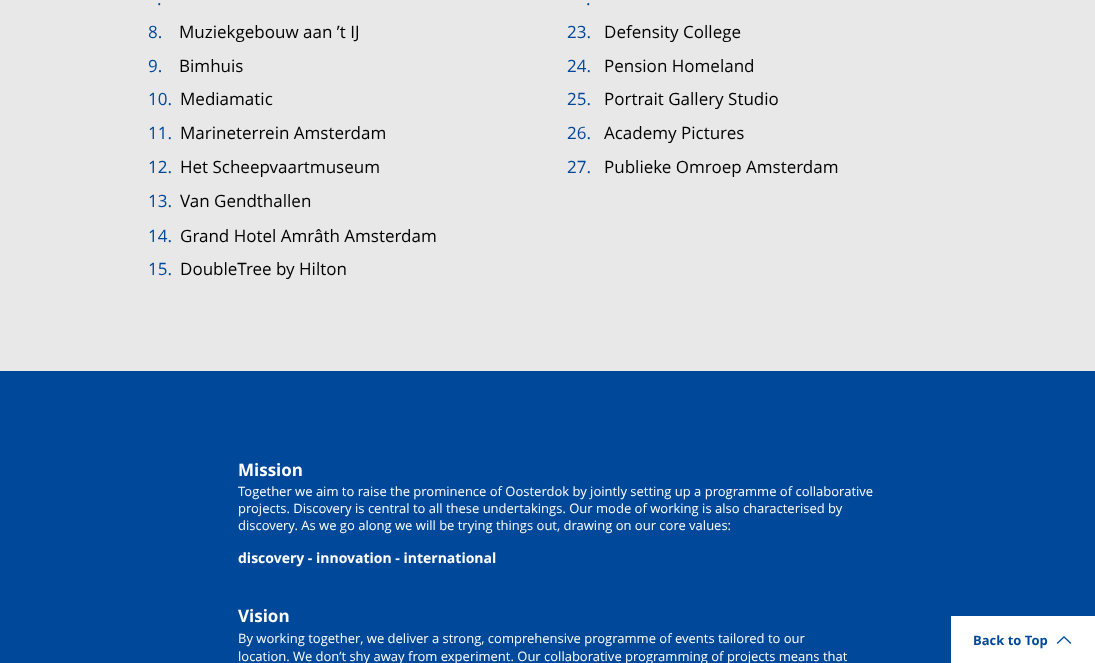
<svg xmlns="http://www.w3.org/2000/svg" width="1095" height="663">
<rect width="100%" height="100%" fill="#e8e8e8"/>
<text x="157" y="5" style="font-family:Open Sans;font-size:17px;fill:#004899">.</text>
<text x="586" y="5" style="font-family:Open Sans;font-size:17px;fill:#004899">.</text>
<text x="148" y="38" style="font-family:Open Sans;font-size:17px;fill:#004899">8.</text>
<text x="179" y="38" style="font-family:Open Sans;font-size:17px;fill:#000">Muziekgebouw aan ’t IJ</text>
<text x="567" y="38" style="font-family:Open Sans;font-size:17px;fill:#004899">23.</text>
<text x="604" y="38" style="font-family:Open Sans;font-size:17px;fill:#000">Defensity College</text>
<text x="148" y="72" style="font-family:Open Sans;font-size:17px;fill:#004899">9.</text>
<text x="179" y="72" style="font-family:Open Sans;font-size:17px;fill:#000">Bimhuis</text>
<text x="567" y="72" style="font-family:Open Sans;font-size:17px;fill:#004899">24.</text>
<text x="604" y="72" style="font-family:Open Sans;font-size:17px;fill:#000">Pension Homeland</text>
<text x="148" y="105" style="font-family:Open Sans;font-size:17px;fill:#004899">10.</text>
<text x="180" y="105" style="font-family:Open Sans;font-size:17px;fill:#000">Mediamatic</text>
<text x="567" y="105" style="font-family:Open Sans;font-size:17px;fill:#004899">25.</text>
<text x="604" y="105" style="font-family:Open Sans;font-size:17px;fill:#000">Portrait Gallery Studio</text>
<text x="148" y="139" style="font-family:Open Sans;font-size:17px;fill:#004899">11.</text>
<text x="180" y="139" style="font-family:Open Sans;font-size:17px;fill:#000">Marineterrein Amsterdam</text>
<text x="567" y="139" style="font-family:Open Sans;font-size:17px;fill:#004899">26.</text>
<text x="604" y="139" style="font-family:Open Sans;font-size:17px;fill:#000">Academy Pictures</text>
<text x="148" y="173" style="font-family:Open Sans;font-size:17px;fill:#004899">12.</text>
<text x="180" y="173" style="font-family:Open Sans;font-size:17px;fill:#000">Het Scheepvaartmuseum</text>
<text x="567" y="173" style="font-family:Open Sans;font-size:17px;fill:#004899">27.</text>
<text x="604" y="173" style="font-family:Open Sans;font-size:17px;fill:#000">Publieke Omroep Amsterdam</text>
<text x="148" y="207" style="font-family:Open Sans;font-size:17px;fill:#004899">13.</text>
<text x="180" y="207" style="font-family:Open Sans;font-size:17px;fill:#000">Van Gendthallen</text>
<text x="148" y="242" style="font-family:Open Sans;font-size:17px;fill:#004899">14.</text>
<text x="180" y="242" style="font-family:Open Sans;font-size:17px;fill:#000">Grand Hotel Amrâth Amsterdam</text>
<text x="148" y="275" style="font-family:Open Sans;font-size:17px;fill:#004899">15.</text>
<text x="180" y="275" style="font-family:Open Sans;font-size:17px;fill:#000">DoubleTree by Hilton</text>
<rect y="371" width="1095" height="292" fill="#004899"/>
<text x="238" y="476" style="font-family:Open Sans;font-size:17px;font-weight:bold;fill:#fff">Mission</text>
<text x="238" y="496" style="font-family:Open Sans;font-size:13px;fill:#fff">Together we aim to raise the prominence of Oosterdok by jointly setting up a programme of collaborative</text>
<text x="238" y="513" style="font-family:Open Sans;font-size:13px;fill:#fff">projects. Discovery is central to all these undertakings. Our mode of working is also characterised by</text>
<text x="238" y="530" style="font-family:Open Sans;font-size:13px;fill:#fff">discovery. As we go along we will be trying things out, drawing on our core values:</text>
<text x="238" y="563" style="font-family:Open Sans;font-size:14px;font-weight:bold;fill:#fff">discovery - innovation - international</text>
<text x="238" y="622" style="font-family:Open Sans;font-size:17px;font-weight:bold;fill:#fff">Vision</text>
<text x="238" y="643" style="font-family:Open Sans;font-size:13px;fill:#fff">By working together, we deliver a strong, comprehensive programme of events tailored to our</text>
<text x="238" y="661" style="font-family:Open Sans;font-size:13px;fill:#fff">location. We don’t shy away from experiment. Our collaborative programming of projects means that</text>
<rect x="951" y="616" width="144" height="47" fill="#fff"/>
<text x="973" y="645" style="font-family:Open Sans;font-size:13px;font-weight:bold;fill:#004899">Back to Top</text>
<image x="1056" y="636" width="16" height="8" href="media/1.png"/>
</svg>
